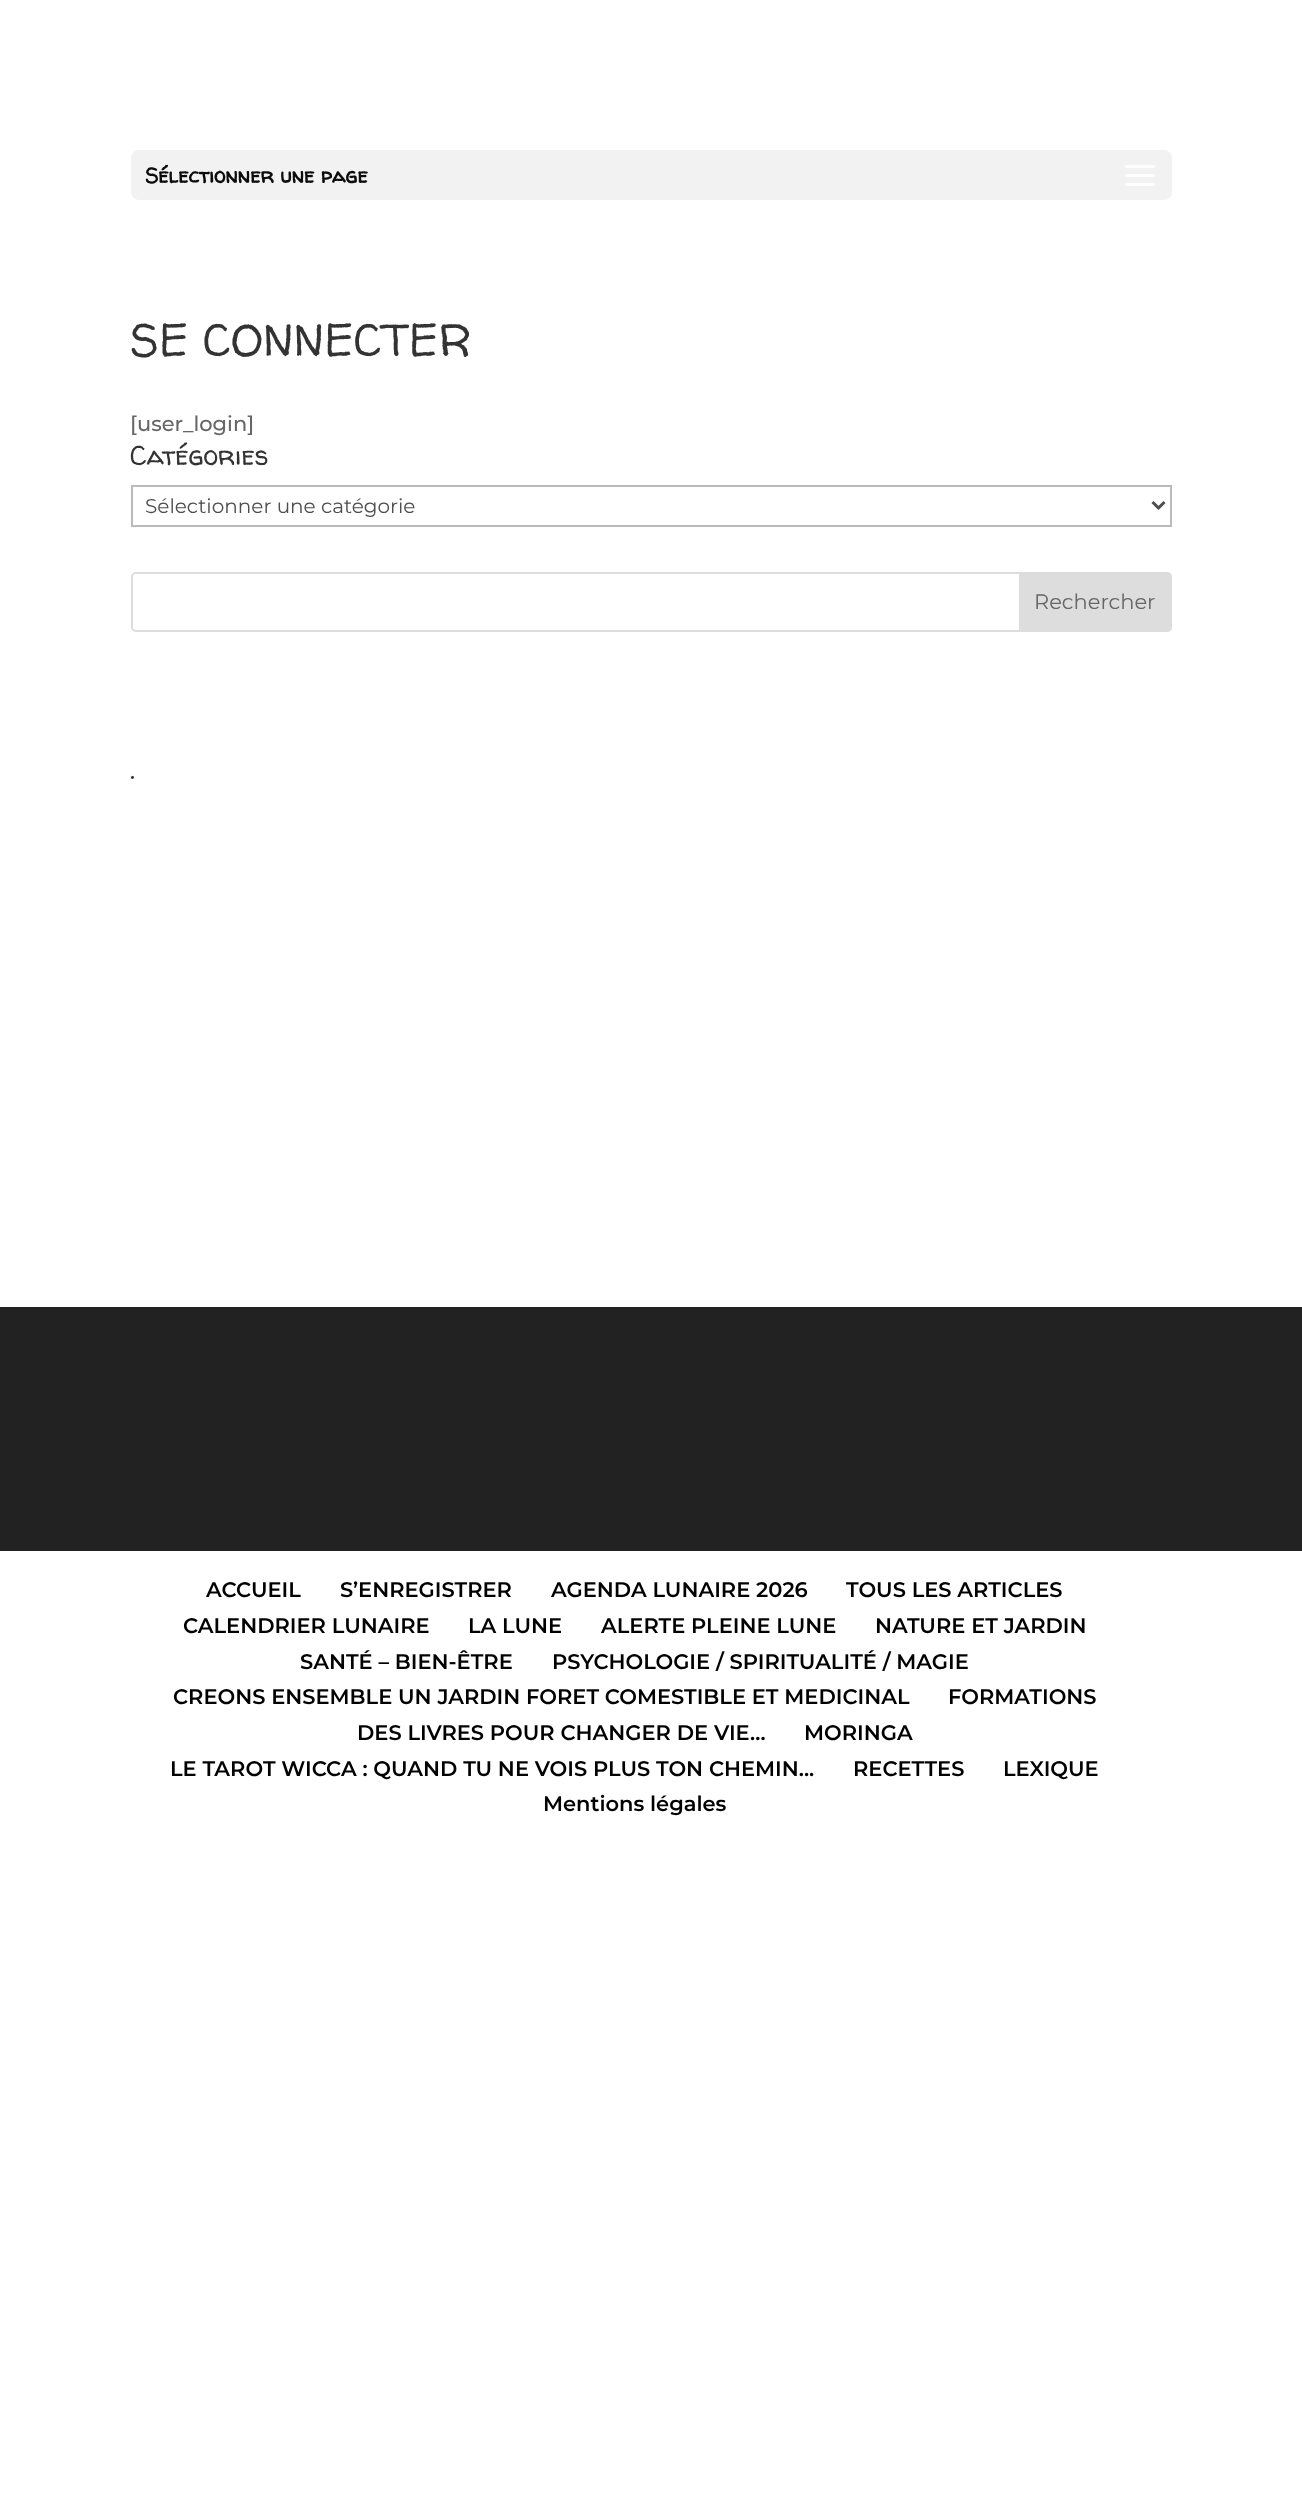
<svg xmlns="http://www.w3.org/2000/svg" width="1302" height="2519">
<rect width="100%" height="100%" fill="#fff"/>
<rect x="131" y="150" width="1041" height="50" rx="8" fill="#f2f2f2"/>
<text x="145" y="183" style="font-family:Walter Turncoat;font-size:21px;font-weight:bold;fill:#0c0c0c">Sélectionner une page</text>
<image x="1125" y="165" width="30" height="21" href="media/1.png"/>
<text x="130" y="356" style="font-family:Walter Turncoat;font-size:45px;fill:#333">SE CONNECTER</text>
<text x="130" y="431" style="font-family:Montserrat;font-size:21px;font-weight:500;fill:#666">[user_login]</text>
<text x="130" y="465" style="font-family:Walter Turncoat;font-size:27px;fill:#333">Catégories</text>
<rect x="132" y="486" width="1039" height="40" fill="none" stroke="#bbb" stroke-width="2"/>
<path d="M1152.5 502l6 6l6-6" fill="none" stroke="#4e4e4e" stroke-width="3"/>
<text x="145" y="513" style="font-family:Montserrat;font-size:20px;fill:#4e4e4e">Sélectionner une catégorie</text>
<rect x="132" y="573" width="1039" height="58" rx="4" fill="none" stroke="#ddd" stroke-width="2"/>
<path d="M1020 573h147c2 0 4 2 4 4v50c0 2-2 4-4 4h-147z" fill="#ddd" stroke="#ddd" stroke-width="2"/>
<text x="1034" y="609" style="font-family:Montserrat;font-size:21px;fill:#666">Rechercher</text>
<text x="130" y="779" style="font-family:Walter Turncoat;font-size:27px;fill:#333">.</text>
<rect y="1307" width="1302" height="244" fill="#222"/>
<text x="206" y="1597" style="font-family:Montserrat;font-size:21px;font-weight:600;fill:#000">ACCUEIL</text>
<text x="340" y="1597" style="font-family:Montserrat;font-size:21px;font-weight:600;fill:#000">S’ENREGISTRER</text>
<text x="551" y="1597" style="font-family:Montserrat;font-size:21px;font-weight:600;fill:#000">AGENDA LUNAIRE 2026</text>
<text x="846" y="1597" style="font-family:Montserrat;font-size:21px;font-weight:600;fill:#000">TOUS LES ARTICLES</text>
<text x="183" y="1633" style="font-family:Montserrat;font-size:21px;font-weight:600;fill:#000">CALENDRIER LUNAIRE</text>
<text x="468" y="1633" style="font-family:Montserrat;font-size:21px;font-weight:600;fill:#000">LA LUNE</text>
<text x="601" y="1633" style="font-family:Montserrat;font-size:21px;font-weight:600;fill:#000">ALERTE PLEINE LUNE</text>
<text x="875" y="1633" style="font-family:Montserrat;font-size:21px;font-weight:600;fill:#000">NATURE ET JARDIN</text>
<text x="300" y="1669" style="font-family:Montserrat;font-size:21px;font-weight:600;fill:#000">SANTÉ – BIEN-ÊTRE</text>
<text x="552" y="1669" style="font-family:Montserrat;font-size:21px;font-weight:600;fill:#000">PSYCHOLOGIE / SPIRITUALITÉ / MAGIE</text>
<text x="173" y="1704" style="font-family:Montserrat;font-size:21px;font-weight:600;fill:#000">CREONS ENSEMBLE UN JARDIN FORET COMESTIBLE ET MEDICINAL</text>
<text x="948" y="1704" style="font-family:Montserrat;font-size:21px;font-weight:600;fill:#000">FORMATIONS</text>
<text x="357" y="1740" style="font-family:Montserrat;font-size:21px;font-weight:600;fill:#000">DES LIVRES POUR CHANGER DE VIE…</text>
<text x="804" y="1740" style="font-family:Montserrat;font-size:21px;font-weight:600;fill:#000">MORINGA</text>
<text x="170" y="1776" style="font-family:Montserrat;font-size:21px;font-weight:600;fill:#000">LE TAROT WICCA : QUAND TU NE VOIS PLUS TON CHEMIN...</text>
<text x="853" y="1776" style="font-family:Montserrat;font-size:21px;font-weight:600;fill:#000">RECETTES</text>
<text x="1003" y="1776" style="font-family:Montserrat;font-size:21px;font-weight:600;fill:#000">LEXIQUE</text>
<text x="543" y="1811" style="font-family:Montserrat;font-size:21px;font-weight:600;fill:#000">Mentions légales</text>
</svg>
